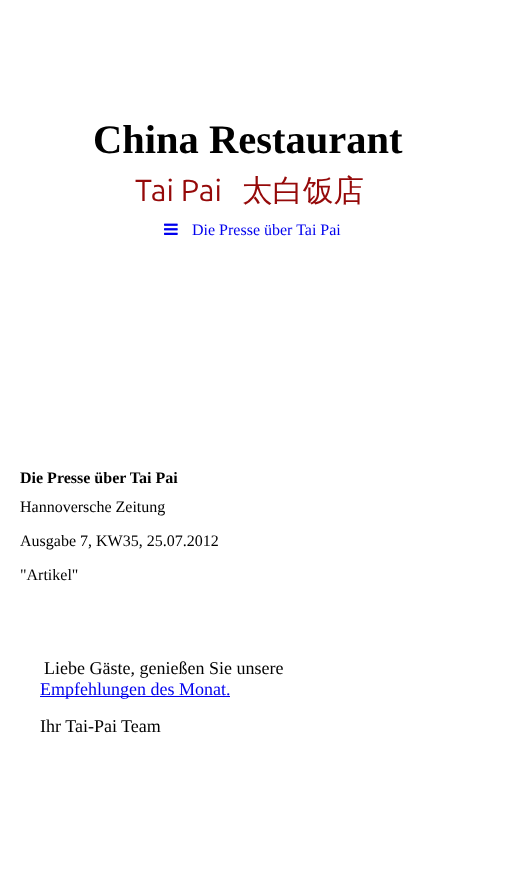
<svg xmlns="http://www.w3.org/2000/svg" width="505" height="884">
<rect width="100%" height="100%" fill="#fff"/>
<text x="93" y="153" style="font-family:Liberation Serif;font-size:40.5px;font-weight:bold;fill:#000">China Restaurant</text>
<text x="135" y="201" style="font-family:Ubuntu;font-size:30.5px;fill:#950909">Tai Pai</text>
<text x="242" y="201" style="font-family:WenQuanYi Zen Hei;font-size:30.5px;font-weight:500;fill:#950909">太白饭店</text>
<image x="164" y="223" width="14" height="12" href="media/1.png"/>
<text x="192" y="235" style="font-family:Liberation Serif;font-size:16px;fill:#00e">Die Presse über Tai Pai</text>
<text x="20" y="483" style="font-family:Liberation Serif;font-size:16px;font-weight:bold;fill:#000">Die Presse über Tai Pai</text>
<text x="20" y="512" style="font-family:Liberation Serif;font-size:16px;fill:#000">Hannoversche Zeitung</text>
<text x="20" y="546" style="font-family:Liberation Serif;font-size:16px;fill:#000">Ausgabe 7, KW35, 25.07.2012</text>
<text x="20" y="580" style="font-family:Liberation Serif;font-size:16px;fill:#000">"Artikel"</text>
<text x="44" y="674" style="font-family:Liberation Serif;font-size:18px;fill:#000">Liebe Gäste, genießen Sie unsere</text>
<rect x="40" y="696" width="190" height="1" fill="#00e"/>
<text x="40" y="695" style="font-family:Liberation Serif;font-size:18px;fill:#00e">Empfehlungen des Monat.</text>
<text x="40" y="732" style="font-family:Liberation Serif;font-size:18px;fill:#000">Ihr Tai-Pai Team</text>
</svg>
